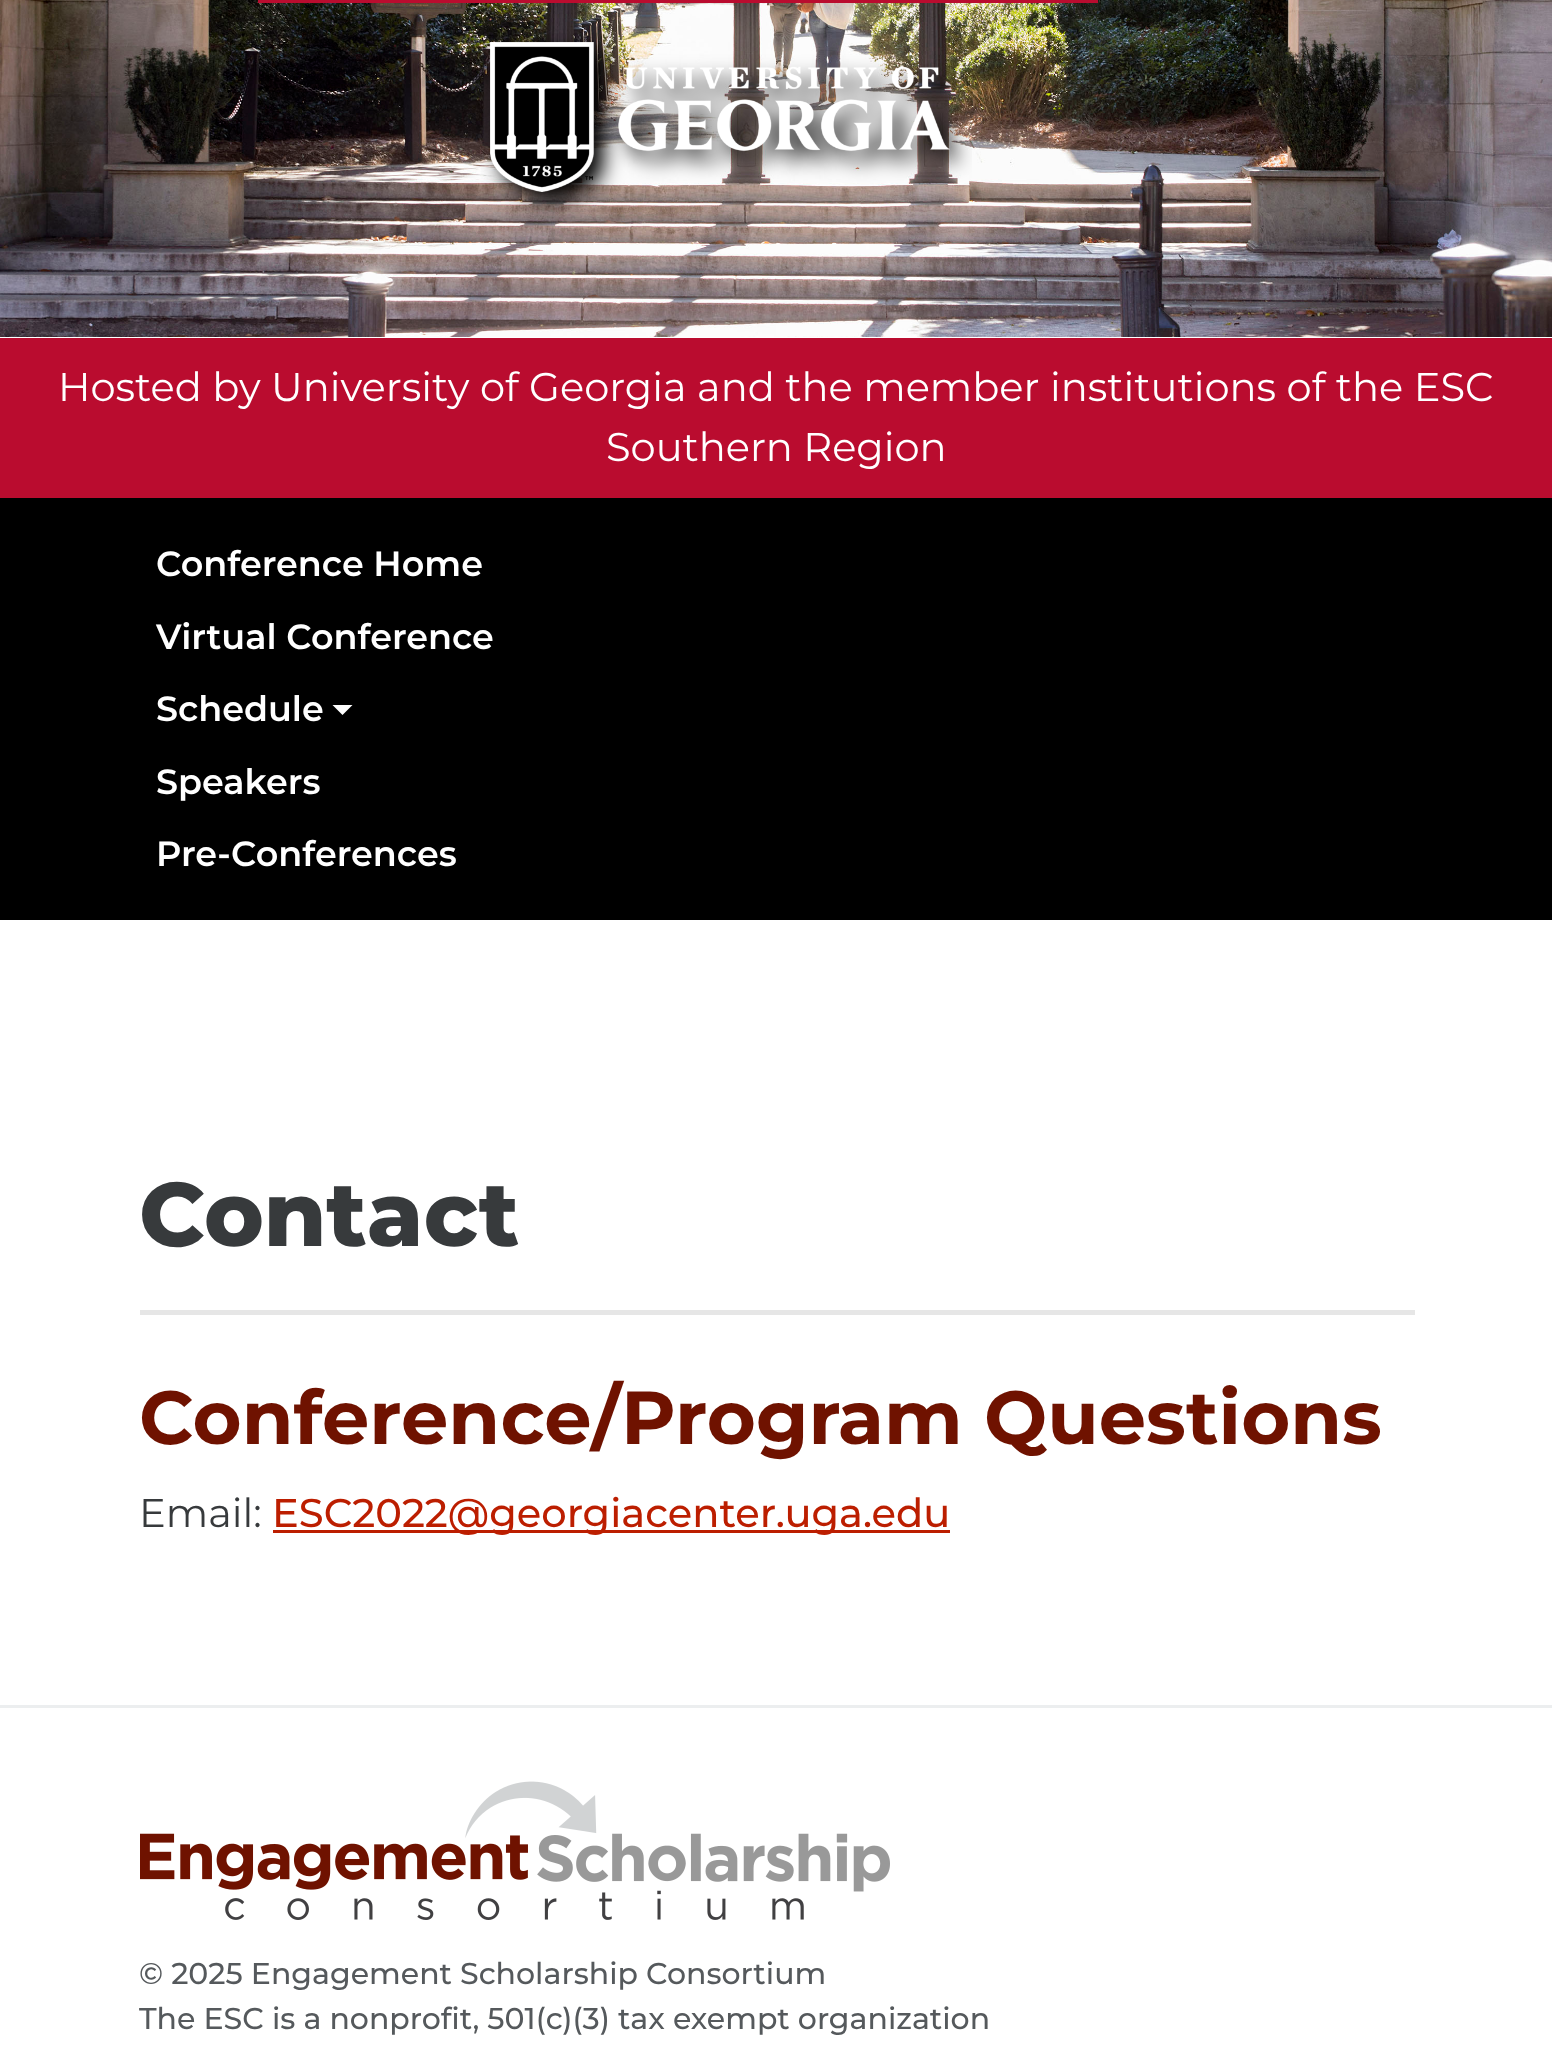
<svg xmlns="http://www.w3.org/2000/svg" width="1552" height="2046">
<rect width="100%" height="100%" fill="#fff"/>
<image x="0" y="0" width="1552" height="337" href="media/1.png"/>
<rect x="258" width="840" height="3" fill="#ba0c2f"/>
<image x="481" y="33" width="491" height="185" href="media/2.png"/>
<rect y="338" width="1552" height="160" fill="#ba0c2f"/>
<text x="58" y="401" style="font-family:Montserrat;font-size:40px;fill:#fff">Hosted by University of Georgia and the member institutions of the ESC</text>
<text x="606" y="461" style="font-family:Montserrat;font-size:40px;fill:#fff">Southern Region</text>
<rect y="498" width="1552" height="422" fill="#000"/>
<text x="156" y="576" style="font-family:Montserrat;font-size:35px;font-weight:600;fill:#fff">Conference Home</text>
<text x="156" y="649" style="font-family:Montserrat;font-size:35px;font-weight:600;fill:#fff">Virtual Conference</text>
<text x="156" y="721" style="font-family:Montserrat;font-size:35px;font-weight:600;fill:#fff">Schedule</text>
<path d="M332.5 705h20l-10 10z" fill="#fff"/>
<text x="156" y="794" style="font-family:Montserrat;font-size:35px;font-weight:600;fill:#fff">Speakers</text>
<text x="156" y="866" style="font-family:Montserrat;font-size:35px;font-weight:600;fill:#fff">Pre-Conferences</text>
<text x="139" y="1246" style="font-family:Montserrat;font-size:90px;font-weight:800;fill:#373a3c">Contact</text>
<rect x="140" y="1310" width="1275" height="5" fill="#e6e6e6"/>
<text x="139" y="1444" style="font-family:Montserrat;font-size:75px;font-weight:bold;fill:#6f1200">Conference/Program Questions</text>
<text x="139" y="1527" style="font-family:Montserrat;font-size:40px;fill:#373a3c">Email:</text>
<rect x="273" y="1530" width="677" height="3" fill="#bc1e00"/>
<text x="272" y="1527" style="font-family:Montserrat;font-size:40px;font-weight:500;fill:#bc1e00">ESC2022@georgiacenter.uga.edu</text>
<rect y="1705" width="1552" height="3" fill="#eceeef"/>
<image x="140" y="1781" width="750" height="139" href="media/3.png"/>
<text x="139" y="1984" style="font-family:Montserrat;font-size:30px;font-weight:500;fill:#55595c">© 2025 Engagement Scholarship Consortium</text>
<text x="139" y="2029" style="font-family:Montserrat;font-size:30px;font-weight:500;fill:#55595c">The ESC is a nonprofit, 501(c)(3) tax exempt organization</text>
</svg>
